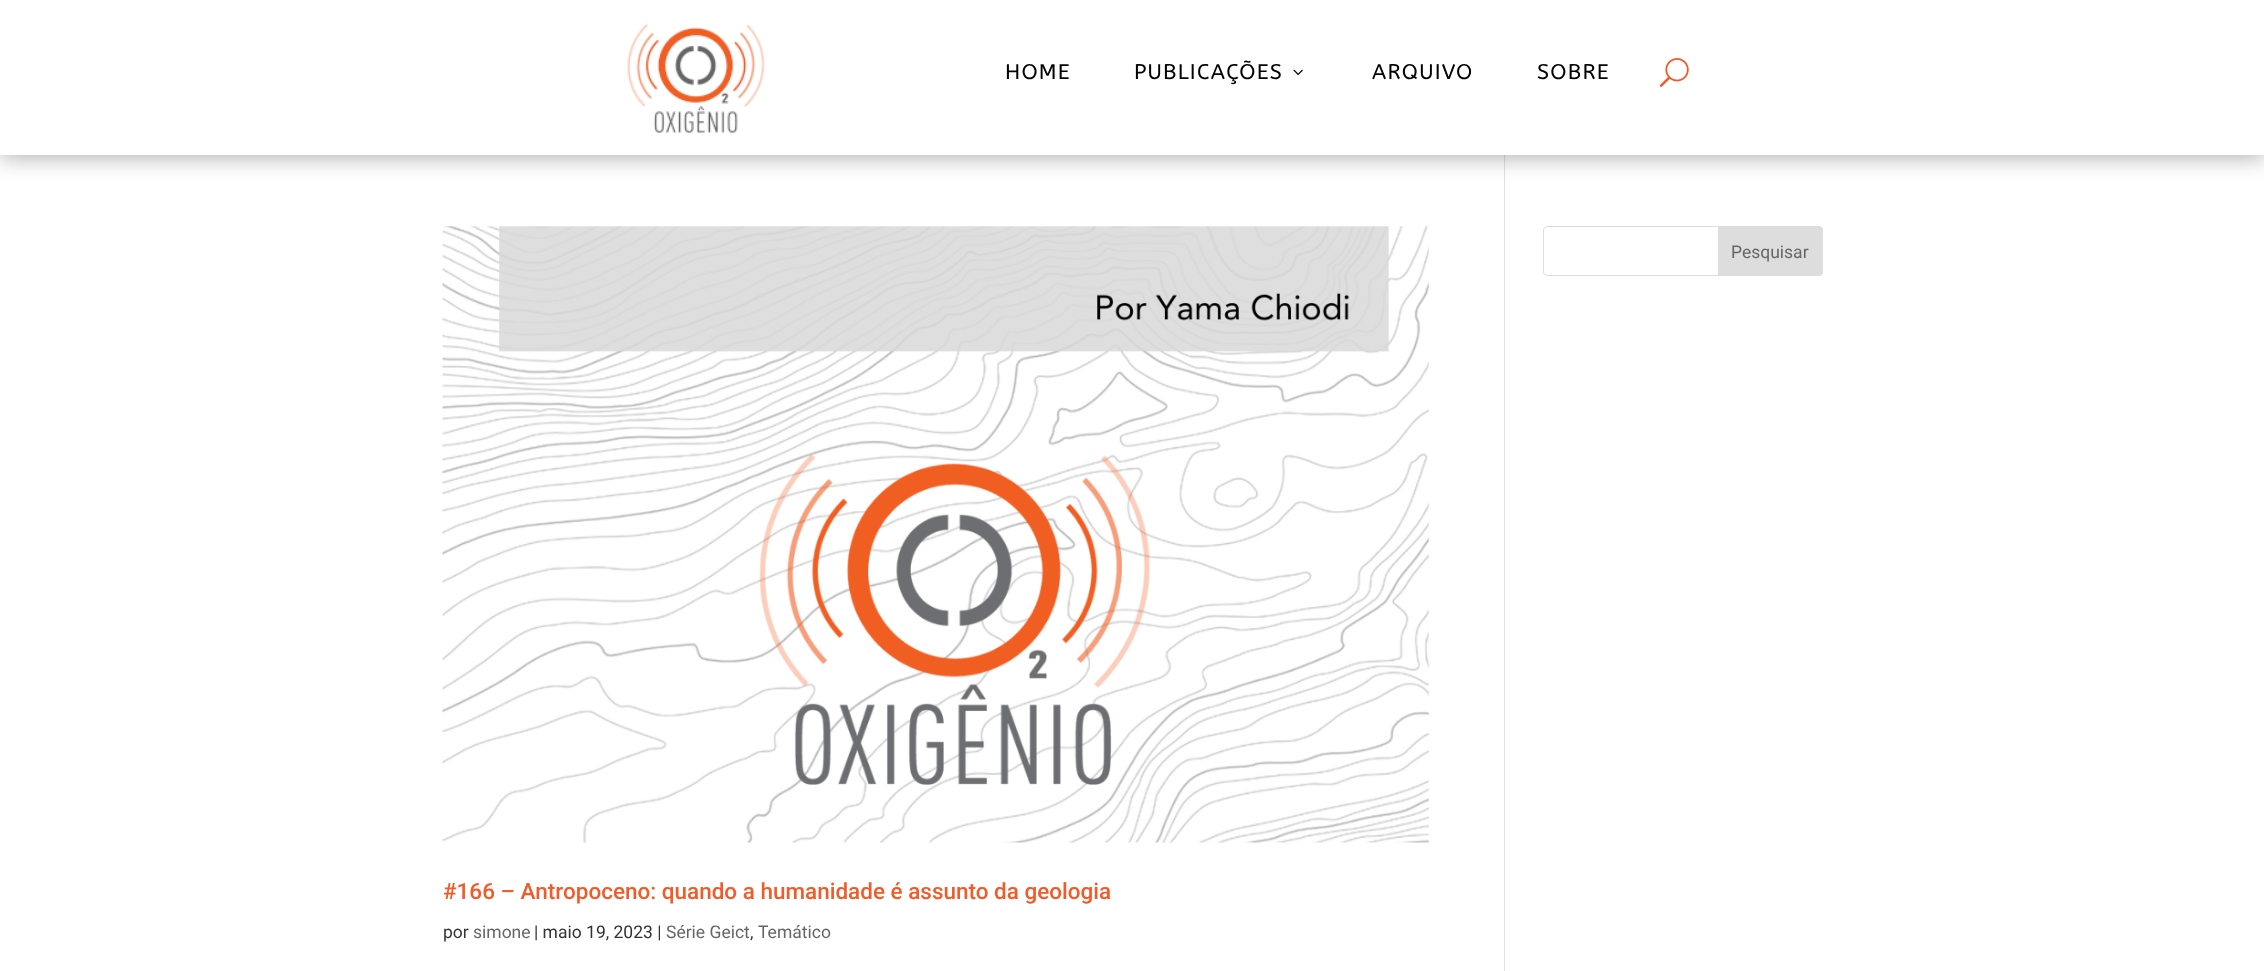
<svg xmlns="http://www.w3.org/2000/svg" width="2264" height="971">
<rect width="100%" height="100%" fill="#fff"/>
<rect x="1504" y="154" width="1" height="817" fill="#e2e2e2"/>
<rect y="3" width="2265" height="155" fill="#0000004d" filter="blur(11px)"/>
<rect width="2264" height="155" fill="#fff"/>
<image x="627" y="23" width="138" height="111" href="media/1.png"/>
<text x="1005" y="79" style="font-family:ABeeZee;font-size:21.25px;letter-spacing:1.25px;fill:#000">HOME</text>
<text x="1134" y="79" style="font-family:ABeeZee;font-size:21.25px;letter-spacing:1.25px;fill:#000">PUBLICAÇÕES</text>
<image x="1293" y="69" width="10" height="6" href="media/2.png"/>
<text x="1372" y="79" style="font-family:ABeeZee;font-size:21.25px;letter-spacing:1.25px;fill:#000">ARQUIVO</text>
<text x="1537" y="79" style="font-family:ABeeZee;font-size:21.25px;letter-spacing:1.25px;fill:#000">SOBRE</text>
<image x="1659" y="58" width="30" height="29" href="media/3.png"/>
<rect x="1543.5" y="226.5" width="279" height="49" rx="3.5" fill="none" stroke="#ddd"/>
<path d="M1718.5 226.5h100.5c2 0 3.5 1.5 3.5 3.5v42c0 2-1.5 3.5-3.5 3.5h-100.5z" fill="#ddd" stroke="#ddd"/>
<text x="1731" y="258" style="font-family:Roboto;font-size:17.5px;fill:#666">Pesquisar</text>
<image x="442" y="226" width="987" height="617" href="media/4.png"/>
<text x="443" y="899" style="font-family:Roboto;font-size:22.5px;font-weight:500;fill:#f05b29">#166 – Antropoceno: quando a humanidade é assunto da geologia</text>
<text x="443" y="938" style="font-family:Roboto;font-size:17.5px;fill:#333">por</text>
<text x="473" y="938" style="font-family:Roboto;font-size:17.5px;fill:#666">simone</text>
<text x="534" y="938" style="font-family:Roboto;font-size:17.5px;fill:#333">| maio 19, 2023 |</text>
<text x="666" y="938" style="font-family:Roboto;font-size:17.5px;fill:#666">Série Geict</text>
<text x="750" y="938" style="font-family:Roboto;font-size:17.5px;fill:#333">,</text>
<text x="758" y="938" style="font-family:Roboto;font-size:17.5px;fill:#666">Temático</text>
</svg>
